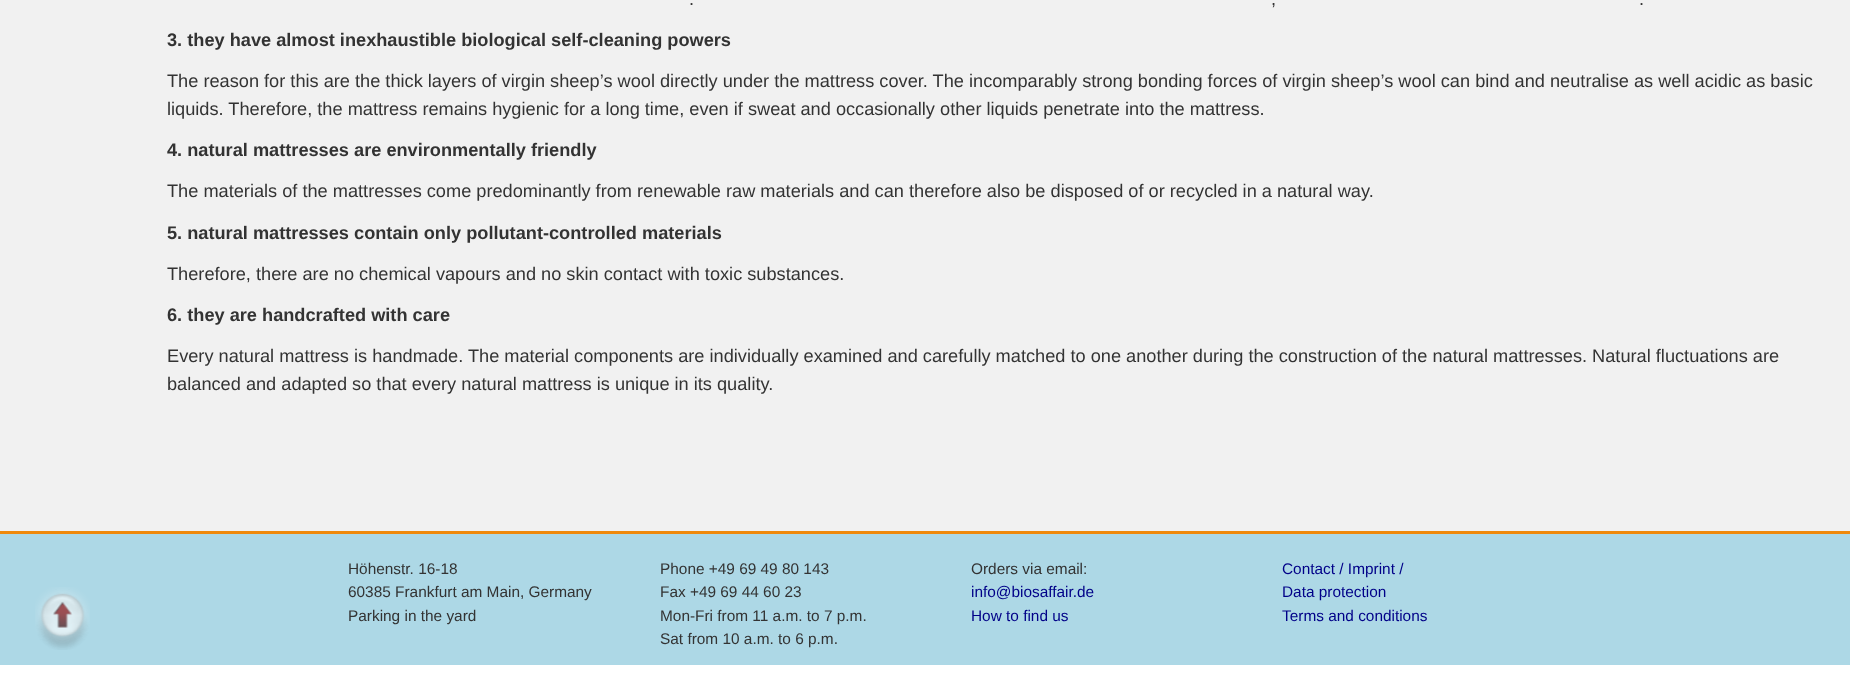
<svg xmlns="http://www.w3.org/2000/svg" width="1850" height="677">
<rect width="100%" height="100%" fill="#fff"/>
<rect width="1850" height="531" fill="#f1f1f1"/>
<text x="689" y="5" style="font-family:Liberation Sans;font-size:18.2px;fill:#333">.</text>
<text x="1271" y="5" style="font-family:Liberation Sans;font-size:18.2px;fill:#333">,</text>
<text x="1639" y="5" style="font-family:Liberation Sans;font-size:18.2px;fill:#333">.</text>
<text x="167" y="46" style="font-family:Liberation Sans;font-size:18.2px;font-weight:bold;fill:#333">3. they have almost inexhaustible biological self-cleaning powers</text>
<text x="167" y="87" style="font-family:Liberation Sans;font-size:18.2px;fill:#333">The reason for this are the thick layers of virgin sheep’s wool directly under the mattress cover. The incomparably strong bonding forces of virgin sheep’s wool can bind and neutralise as well acidic as basic</text>
<text x="167" y="115" style="font-family:Liberation Sans;font-size:18.2px;fill:#333">liquids. Therefore, the mattress remains hygienic for a long time, even if sweat and occasionally other liquids penetrate into the mattress.</text>
<text x="167" y="156" style="font-family:Liberation Sans;font-size:18.2px;font-weight:bold;fill:#333">4. natural mattresses are environmentally friendly</text>
<text x="167" y="197" style="font-family:Liberation Sans;font-size:18.2px;fill:#333">The materials of the mattresses come predominantly from renewable raw materials and can therefore also be disposed of or recycled in a natural way.</text>
<text x="167" y="239" style="font-family:Liberation Sans;font-size:18.2px;font-weight:bold;fill:#333">5. natural mattresses contain only pollutant-controlled materials</text>
<text x="167" y="280" style="font-family:Liberation Sans;font-size:18.2px;fill:#333">Therefore, there are no chemical vapours and no skin contact with toxic substances.</text>
<text x="167" y="321" style="font-family:Liberation Sans;font-size:18.2px;font-weight:bold;fill:#333">6. they are handcrafted with care</text>
<text x="167" y="362" style="font-family:Liberation Sans;font-size:18.2px;fill:#333">Every natural mattress is handmade. The material components are individually examined and carefully matched to one another during the construction of the natural mattresses. Natural fluctuations are</text>
<text x="167" y="390" style="font-family:Liberation Sans;font-size:18.2px;fill:#333">balanced and adapted so that every natural mattress is unique in its quality.</text>
<rect y="534" width="1850" height="131" fill="#add8e6"/>
<image x="35" y="587" width="55" height="63" href="media/1.png"/>
<rect y="531" width="1850" height="3" fill="#ef890b"/>
<text x="348" y="574" style="font-family:Liberation Sans;font-size:15.4px;fill:#333">Höhenstr. 16-18</text>
<text x="348" y="597" style="font-family:Liberation Sans;font-size:15.4px;fill:#333">60385 Frankfurt am Main, Germany</text>
<text x="348" y="621" style="font-family:Liberation Sans;font-size:15.4px;fill:#333">Parking in the yard</text>
<text x="660" y="574" style="font-family:Liberation Sans;font-size:15.4px;fill:#333">Phone +49 69 49 80 143</text>
<text x="660" y="597" style="font-family:Liberation Sans;font-size:15.4px;fill:#333">Fax +49 69 44 60 23</text>
<text x="660" y="621" style="font-family:Liberation Sans;font-size:15.4px;fill:#333">Mon-Fri from 11 a.m. to 7 p.m.</text>
<text x="660" y="644" style="font-family:Liberation Sans;font-size:15.4px;fill:#333">Sat from 10 a.m. to 6 p.m.</text>
<text x="971" y="574" style="font-family:Liberation Sans;font-size:15.4px;fill:#333">Orders via email:</text>
<text x="971" y="597" style="font-family:Liberation Sans;font-size:15.4px;fill:#008">info@biosaffair.de</text>
<text x="971" y="621" style="font-family:Liberation Sans;font-size:15.4px;fill:#008">How to find us</text>
<text x="1282" y="574" style="font-family:Liberation Sans;font-size:15.4px;fill:#008">Contact / Imprint /</text>
<text x="1282" y="597" style="font-family:Liberation Sans;font-size:15.4px;fill:#008">Data protection</text>
<text x="1282" y="621" style="font-family:Liberation Sans;font-size:15.4px;fill:#008">Terms and conditions</text>
</svg>
